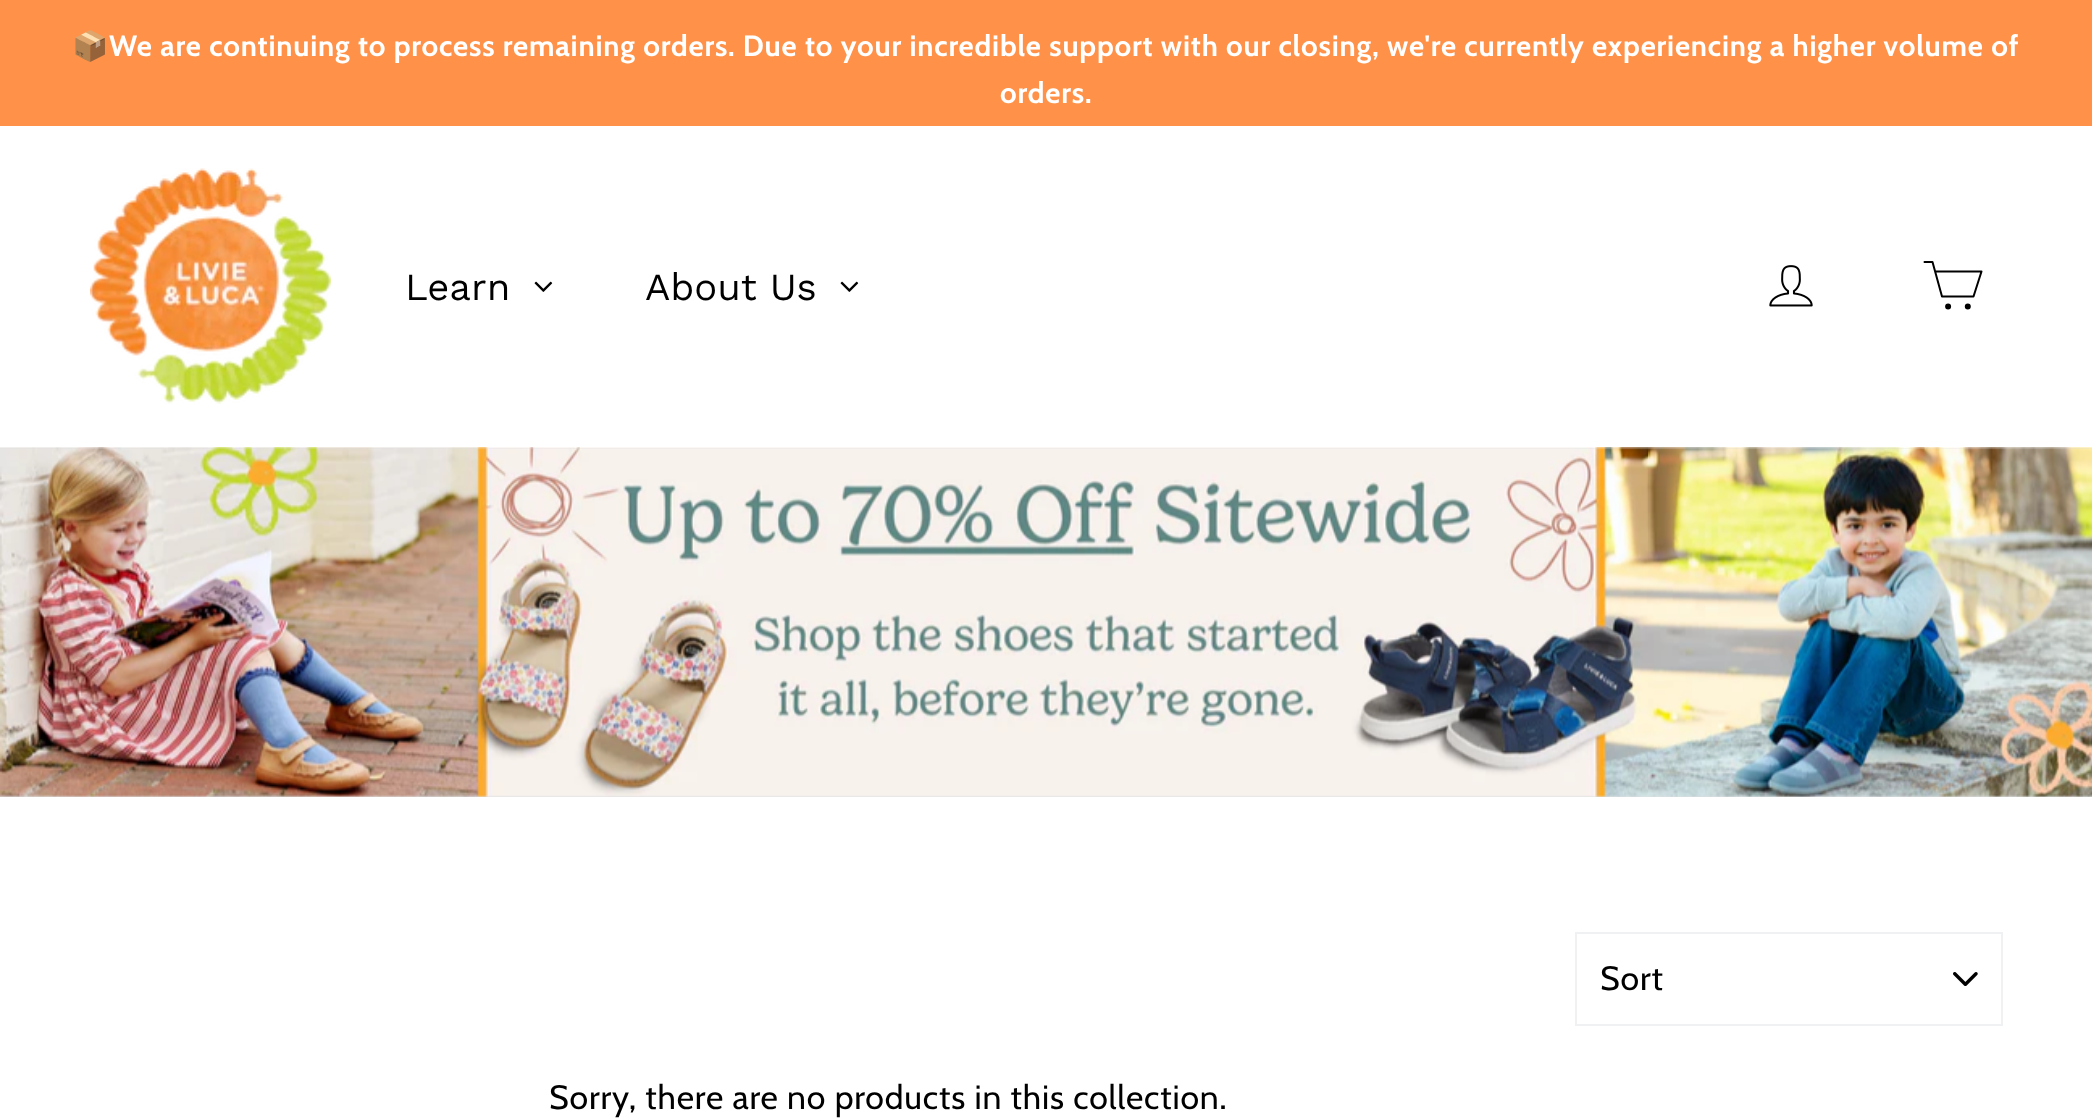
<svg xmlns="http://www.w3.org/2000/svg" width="2092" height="1119">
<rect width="100%" height="100%" fill="#fff"/>
<rect width="2092" height="126" fill="#ff9248"/>
<text x="72" y="56" style="font-family:Noto Color Emoji;font-size:29.25px;font-weight:bold;letter-spacing:0.84px;fill:#fff">📦</text>
<text x="109" y="56" style="font-family:Cabin;font-size:29.25px;font-weight:bold;letter-spacing:0.84px;fill:#fff">We are continuing to process remaining orders. Due to your incredible support with our closing, we're currently experiencing a higher volume of</text>
<text x="1000" y="103" style="font-family:Cabin;font-size:29.25px;font-weight:bold;letter-spacing:0.84px;fill:#fff">orders.</text>
<image x="90" y="168" width="241" height="236" href="media/1.png"/>
<text x="405" y="300" style="font-family:Work Sans;font-size:38.25px;fill:#000">Learn</text>
<image x="534" y="281" width="19" height="11" href="media/2.png"/>
<text x="645" y="300" style="font-family:Work Sans;font-size:38.25px;fill:#000">About Us</text>
<image x="840" y="281" width="19" height="11" href="media/2.png"/>
<image x="1769" y="265" width="44" height="42" href="media/3.png"/>
<path d="M1935.5 271.5h46l-8 25h-31.5l-9.5-34.5h-8" fill="none" stroke="#000" stroke-width="2" stroke-linecap="round" stroke-linejoin="round"/>
<circle cx="1948.1" cy="306.4" r="2" fill="#000" stroke="#000" stroke-width="2"/>
<circle cx="1967.8" cy="306.4" r="2" fill="#000" stroke="#000" stroke-width="2"/>
<rect y="448" width="2092" height="349" fill="#dedfe1"/>
<image x="0" y="447" width="2092" height="350" href="media/4.png"/>
<image x="1953" y="972" width="25" height="14" href="media/5.png"/>
<rect x="1576" y="933" width="426" height="92" fill="none" stroke="#f0f1f3" stroke-width="2"/>
<text x="1600" y="990" style="font-family:Cabin;font-size:33.75px;letter-spacing:0.84px;fill:#000">Sort</text>
<text x="549" y="1109" style="font-family:Cabin;font-size:33.75px;letter-spacing:0.84px;fill:#000">Sorry, there are no products in this collection.</text>
</svg>
